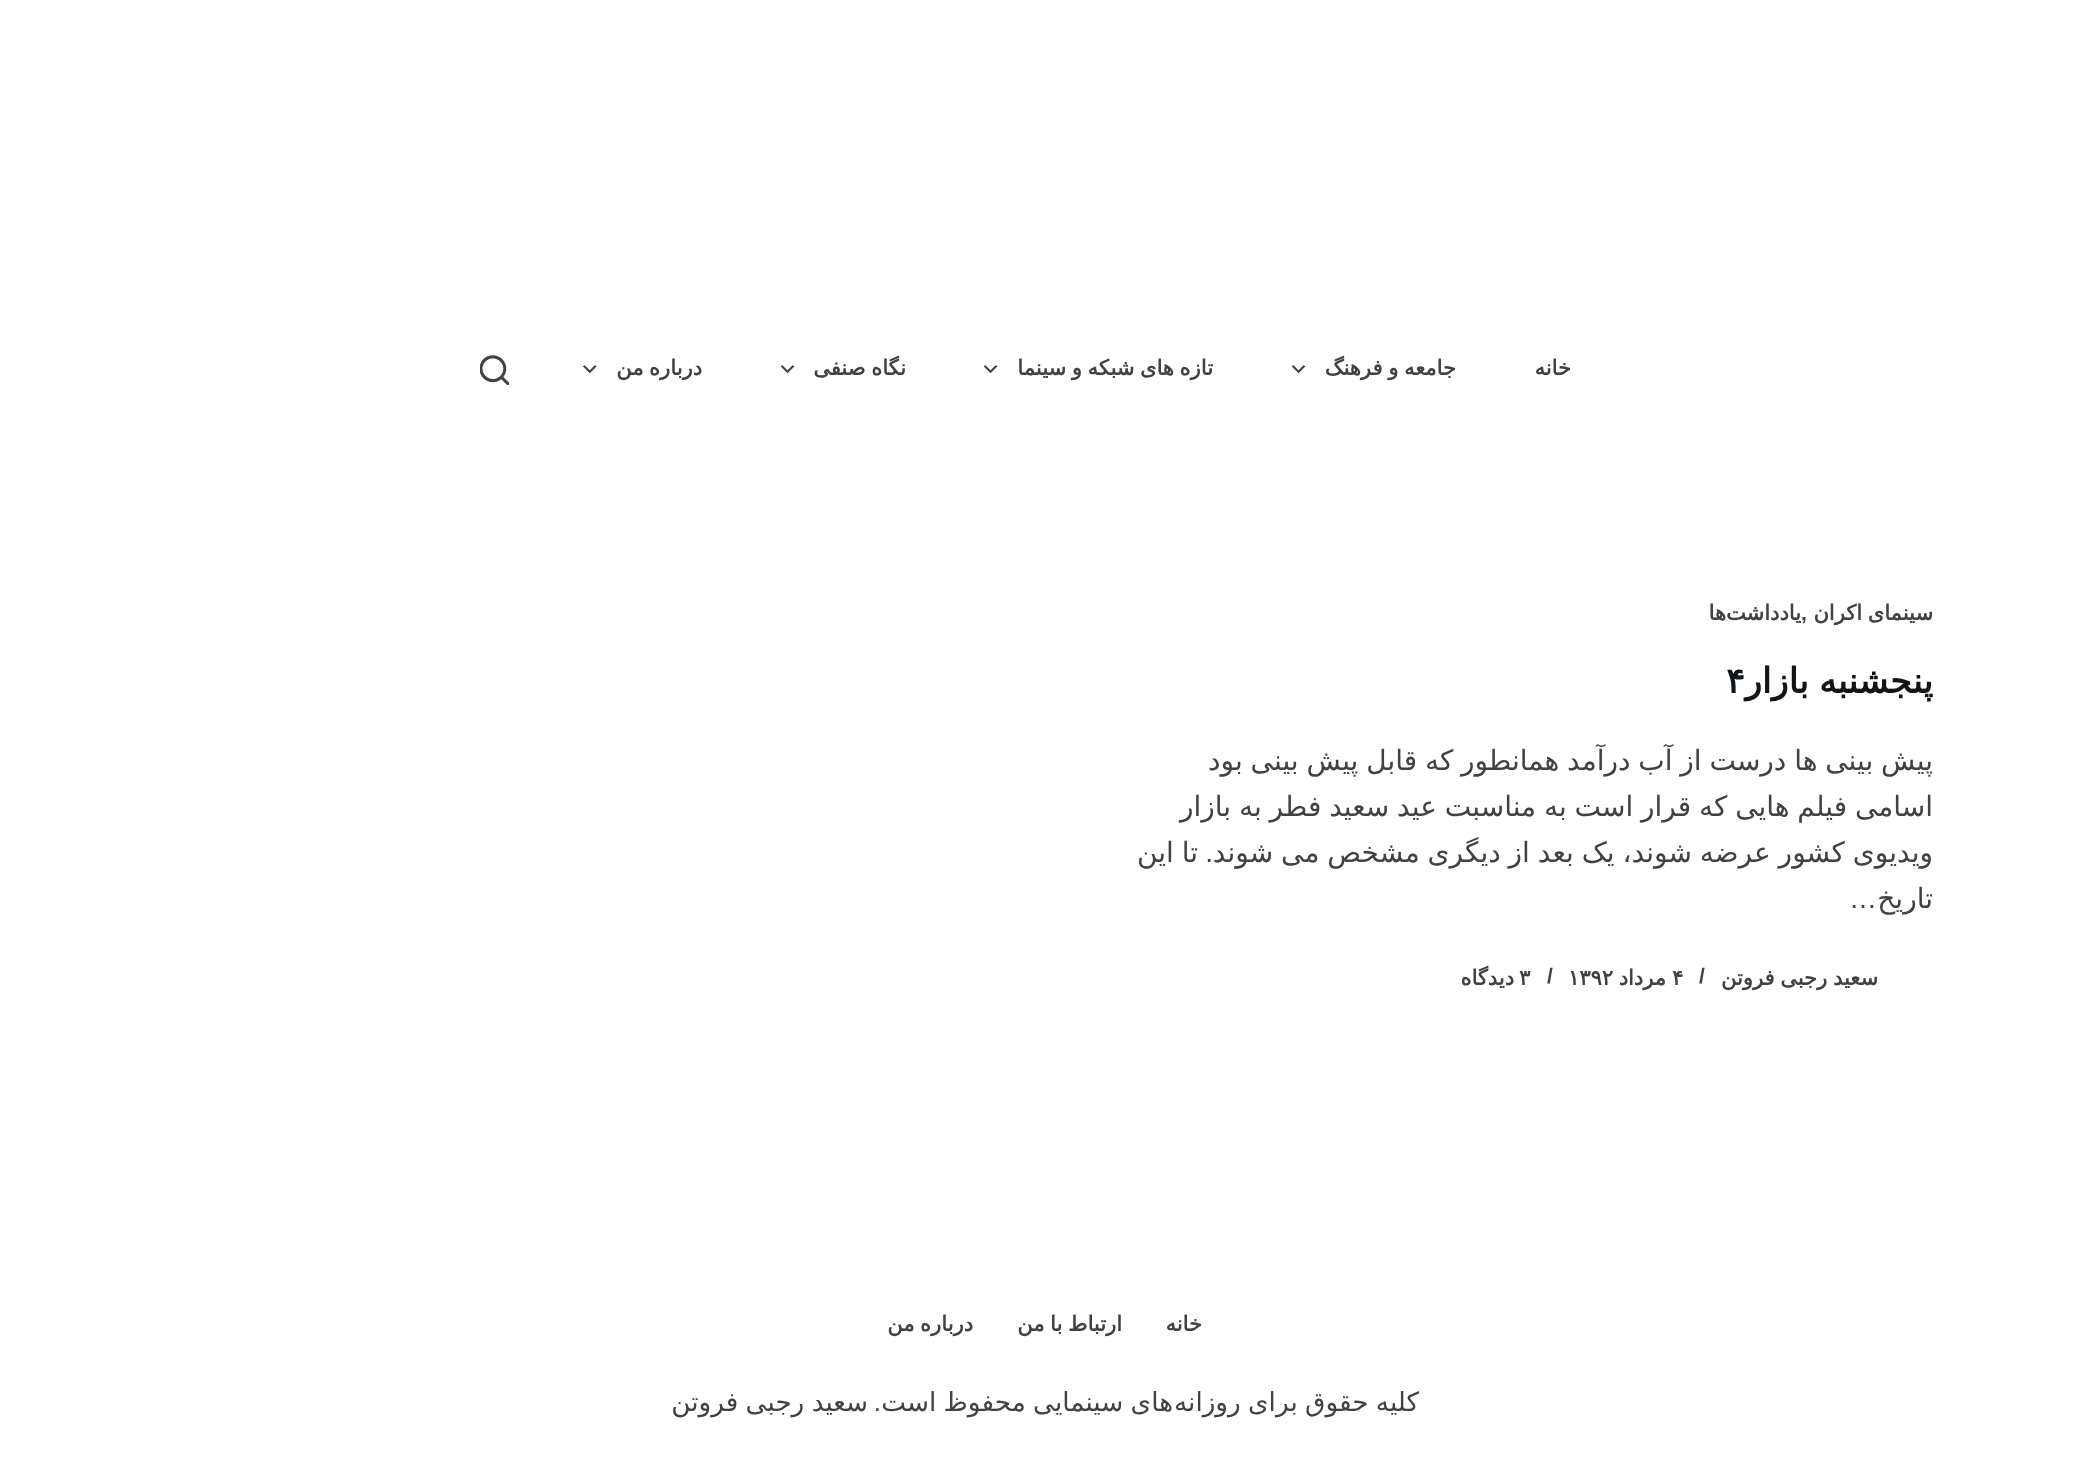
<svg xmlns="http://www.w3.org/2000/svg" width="2088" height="1459">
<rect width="100%" height="100%" fill="#fff"/>
<text x="1571" y="375" style="font-family:DejaVu Sans;font-size:21px;font-weight:bold;direction:rtl;fill:#3f4245">خانه</text>
<text x="1456" y="375" word-spacing="-1" style="font-family:DejaVu Sans;font-size:21px;font-weight:bold;direction:rtl;fill:#3f4245">جامعه و فرهنگ</text>
<image x="1292" y="365" width="14" height="9" href="media/1.png"/>
<text x="1213" y="375" word-spacing="-1" style="font-family:DejaVu Sans;font-size:21px;font-weight:bold;direction:rtl;fill:#3f4245">تازه های شبکه و سینما</text>
<image x="984" y="365" width="14" height="9" href="media/1.png"/>
<text x="906" y="375" word-spacing="-1" style="font-family:DejaVu Sans;font-size:21px;font-weight:bold;direction:rtl;fill:#3f4245">نگاه صنفی</text>
<image x="781" y="365" width="14" height="9" href="media/1.png"/>
<text x="702" y="375" word-spacing="-1" style="font-family:DejaVu Sans;font-size:21px;font-weight:bold;direction:rtl;fill:#3f4245">درباره من</text>
<image x="583" y="365" width="14" height="9" href="media/2.png"/>
<image x="480" y="355" width="29" height="30" href="media/3.png"/>
<text x="1933" y="620" word-spacing="-1" style="font-family:DejaVu Sans;font-size:21px;font-weight:bold;direction:rtl;fill:#3f4245">سینمای اکران</text>
<text x="1801" y="620" style="font-family:Liberation Sans;font-size:21px;font-weight:bold;fill:#3f4245">,</text>
<text x="1801" y="620" style="font-family:DejaVu Sans;font-size:21px;font-weight:bold;direction:rtl;fill:#3f4245">یادداشت</text>
<text x="1726" y="620" style="font-family:DejaVu Sans;font-size:21px;font-weight:bold;direction:rtl;fill:#3f4245">ها</text>
<text x="1933" y="693" word-spacing="-1" style="font-family:DejaVu Sans;font-size:35px;font-weight:bold;direction:rtl;fill:#111518">پنجشنبه بازار</text>
<text x="1726" y="693" style="font-family:DejaVu Sans;font-size:35px;font-weight:bold;fill:#111518">۴</text>
<text x="1933" y="770" word-spacing="-1.1" style="font-family:DejaVu Sans;font-size:28px;direction:rtl;fill:#3f4245">پیش بینی ها درست از آب درآمد همانطور که قابل پیش بینی بود</text>
<text x="1933" y="816" word-spacing="-1.1" style="font-family:DejaVu Sans;font-size:28px;direction:rtl;fill:#3f4245">اسامی فیلم هایی که قرار است به مناسبت عید سعید فطر به بازار</text>
<text x="1933" y="862" word-spacing="-1" style="font-family:DejaVu Sans;font-size:28px;direction:rtl;fill:#3f4245">ویدیوی کشور عرضه شوند، یک بعد از دیگری مشخص می شوند</text>
<text x="1213" y="862" style="font-family:Liberation Sans;font-size:28px;direction:rtl;fill:#3f4245">.</text>
<text x="1198" y="862" word-spacing="-1" style="font-family:DejaVu Sans;font-size:28px;direction:rtl;fill:#3f4245">تا این</text>
<text x="1933" y="908" style="font-family:DejaVu Sans;font-size:28px;direction:rtl;fill:#3f4245">تاریخ</text>
<text x="1877" y="908" style="font-family:Liberation Sans;font-size:28px;direction:rtl;fill:#3f4245">…</text>
<text x="1878" y="985" word-spacing="-1" style="font-family:DejaVu Sans;font-size:21px;font-weight:bold;direction:rtl;fill:#3f4245">سعید رجبی فروتن</text>
<text x="1699" y="983" style="font-family:Liberation Sans;font-size:21px;font-weight:bold;fill:#3f4245">/</text>
<text x="1672" y="985" style="font-family:DejaVu Sans;font-size:21px;font-weight:bold;fill:#3f4245">۴</text>
<text x="1666" y="985" style="font-family:DejaVu Sans;font-size:21px;font-weight:bold;direction:rtl;fill:#3f4245">مرداد</text>
<text x="1568" y="985" style="font-family:DejaVu Sans;font-size:21px;font-weight:bold;fill:#3f4245">۱۳۹۲</text>
<text x="1547" y="983" style="font-family:Liberation Sans;font-size:21px;font-weight:bold;fill:#3f4245">/</text>
<text x="1519" y="985" style="font-family:DejaVu Sans;font-size:21px;font-weight:bold;fill:#3f4245">۳</text>
<text x="1514" y="985" style="font-family:DejaVu Sans;font-size:21px;font-weight:bold;direction:rtl;fill:#3f4245">دیدگاه</text>
<text x="1202" y="1331" style="font-family:DejaVu Sans;font-size:21px;font-weight:bold;direction:rtl;fill:#3f4245">خانه</text>
<text x="1122" y="1331" word-spacing="-1" style="font-family:DejaVu Sans;font-size:21px;font-weight:bold;direction:rtl;fill:#3f4245">ارتباط با من</text>
<text x="973" y="1331" word-spacing="-1" style="font-family:DejaVu Sans;font-size:21px;font-weight:bold;direction:rtl;fill:#3f4245">درباره من</text>
<text x="1419" y="1411" word-spacing="-1" style="font-family:DejaVu Sans;font-size:26.25px;direction:rtl;fill:#3f4245">کلیه حقوق برای روزانه</text>
<text x="1173" y="1411" word-spacing="-1" style="font-family:DejaVu Sans;font-size:26.25px;direction:rtl;fill:#3f4245">های سینمایی محفوظ است</text>
<text x="881" y="1411" style="font-family:Liberation Sans;font-size:26.25px;direction:rtl;fill:#3f4245">.</text>
<text x="868" y="1411" word-spacing="-1" style="font-family:DejaVu Sans;font-size:26.25px;direction:rtl;fill:#3f4245">سعید رجبی فروتن</text>
</svg>
